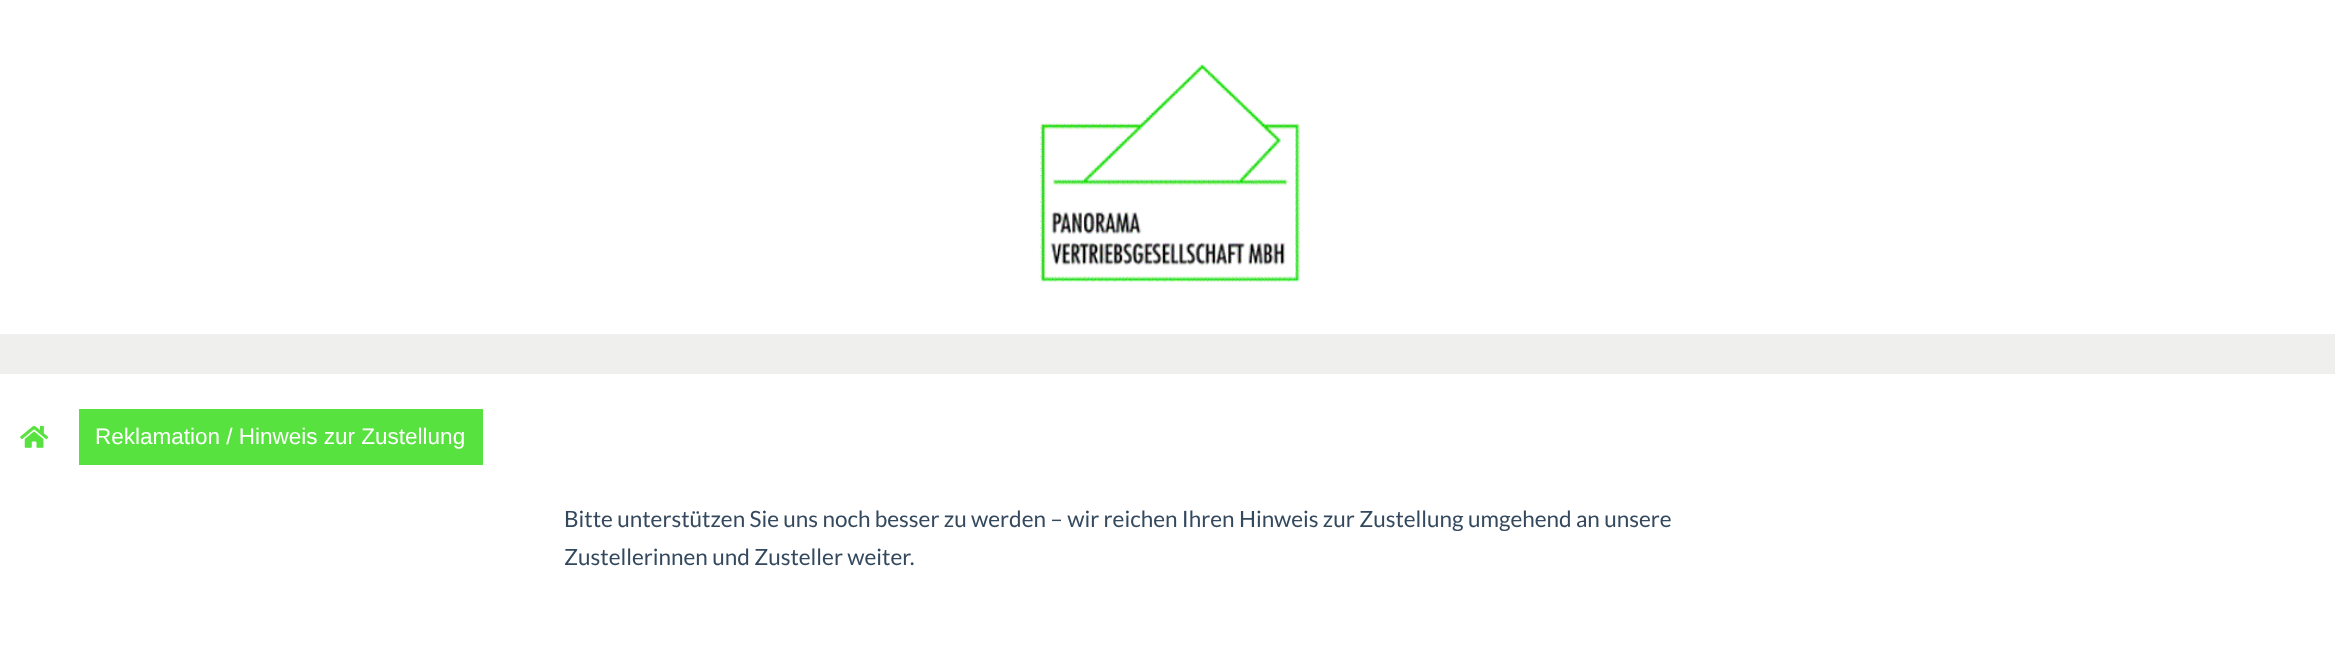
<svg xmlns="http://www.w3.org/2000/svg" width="2335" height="663">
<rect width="100%" height="100%" fill="#eff0ed"/>
<rect width="2335" height="334" fill="#fff"/>
<image x="1039" y="64" width="261" height="219" href="media/1.png"/>
<rect y="374" width="2335" height="289" fill="#fff"/>
<image x="20" y="425" width="29" height="23" href="media/2.png"/>
<rect x="79" y="409" width="404" height="56" fill="#58e240"/>
<text x="95" y="444" style="font-family:Liberation Sans;font-size:22.5px;fill:#fff">Reklamation / Hinweis zur Zustellung</text>
<text x="564" y="527" style="font-family:Lato;font-size:22.5px;fill:#34495e">Bitte unterstützen Sie uns noch besser zu werden – wir reichen Ihren Hinweis zur Zustellung umgehend an unsere</text>
<text x="564" y="565" style="font-family:Lato;font-size:22.5px;fill:#34495e">Zustellerinnen und Zusteller weiter.</text>
</svg>
